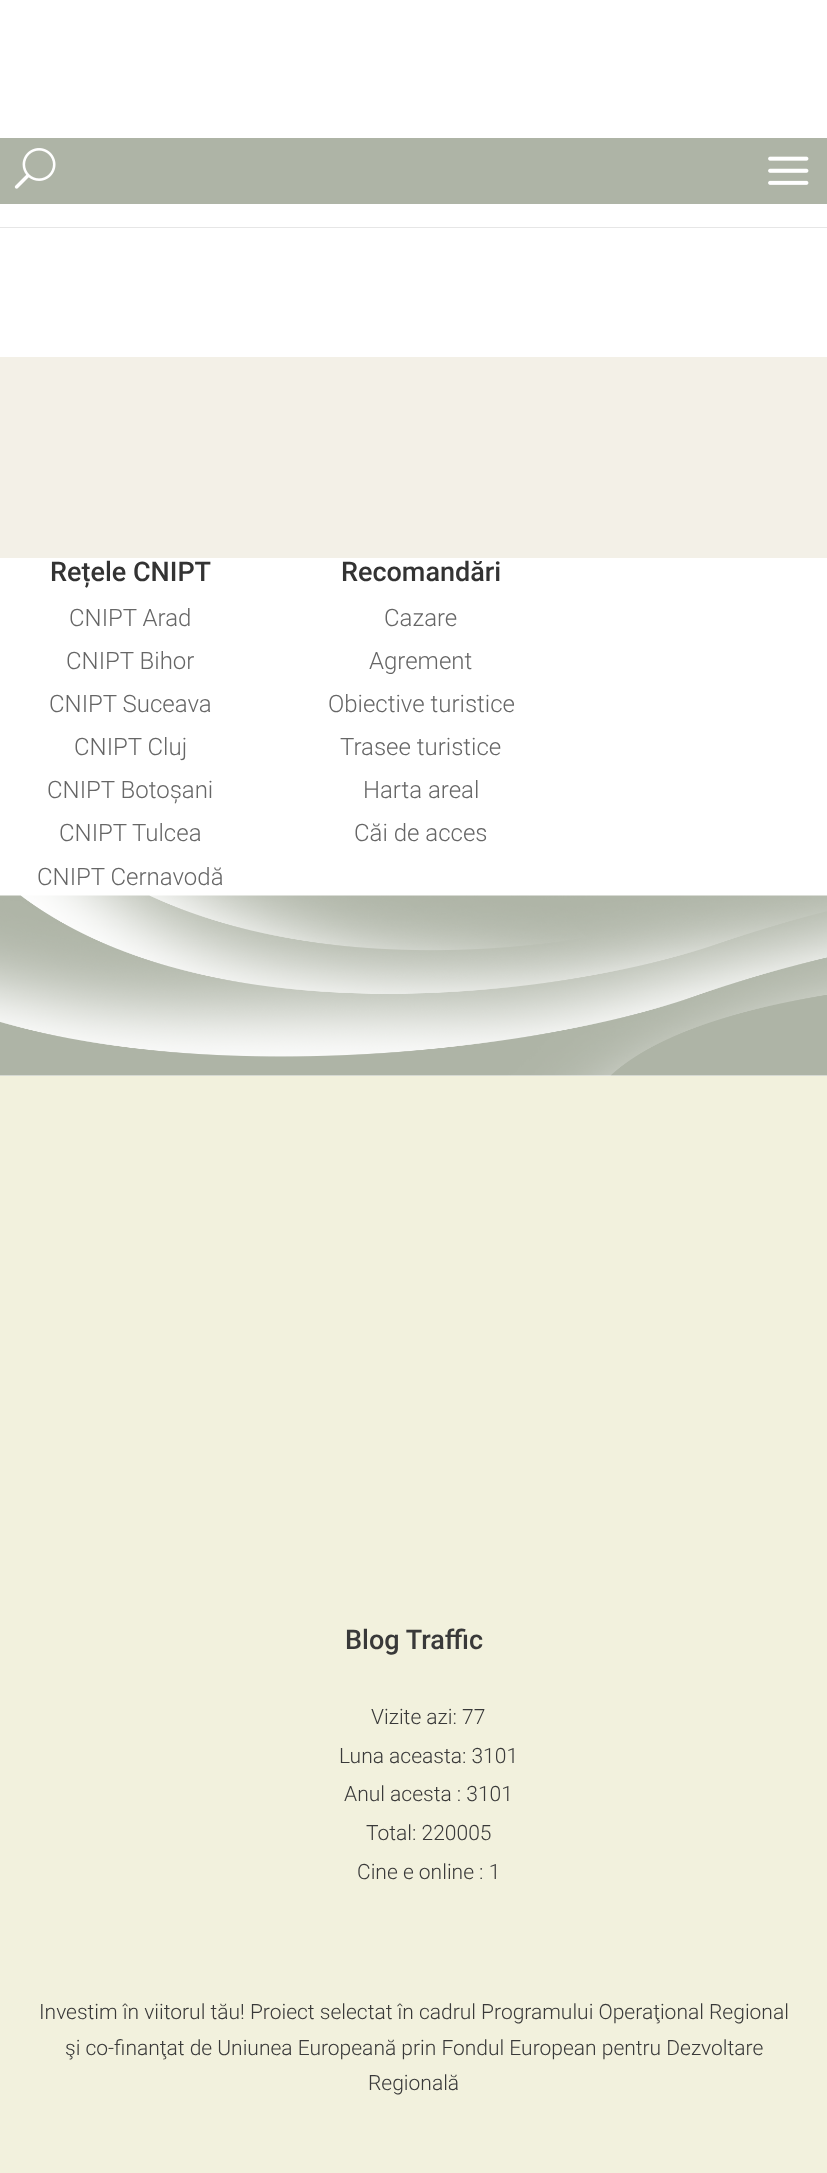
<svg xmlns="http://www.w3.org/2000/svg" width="827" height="2173">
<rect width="100%" height="100%" fill="#fff"/>
<rect y="227" width="827" height="1" fill="#e6e6e6"/>
<rect y="138" width="827" height="66" fill="#aeb4a6"/>
<image x="768" y="156" width="41" height="29" href="media/1.png"/>
<image x="14" y="148" width="42" height="41" href="media/2.png"/>
<rect y="357" width="827" height="201" fill="#f3f0e7"/>
<text x="50" y="581" style="font-family:Roboto;font-size:27px;font-weight:500;fill:#333">Rețele CNIPT</text>
<text x="69" y="626" style="font-family:Roboto;font-size:24px;font-weight:300;fill:#666">CNIPT Arad</text>
<text x="66" y="669" style="font-family:Roboto;font-size:24px;font-weight:300;fill:#666">CNIPT Bihor</text>
<text x="49" y="712" style="font-family:Roboto;font-size:24px;font-weight:300;fill:#666">CNIPT Suceava</text>
<text x="74" y="755" style="font-family:Roboto;font-size:24px;font-weight:300;fill:#666">CNIPT Cluj</text>
<text x="47" y="798" style="font-family:Roboto;font-size:24px;font-weight:300;fill:#666">CNIPT Botoșani</text>
<text x="59" y="841" style="font-family:Roboto;font-size:24px;font-weight:300;fill:#666">CNIPT Tulcea</text>
<text x="37" y="885" style="font-family:Roboto;font-size:24px;font-weight:300;fill:#666">CNIPT Cernavodă</text>
<text x="341" y="581" style="font-family:Roboto;font-size:27px;font-weight:500;fill:#333">Recomandări</text>
<text x="384" y="626" style="font-family:Roboto;font-size:24px;font-weight:300;fill:#666">Cazare</text>
<text x="369" y="669" style="font-family:Roboto;font-size:24px;font-weight:300;fill:#666">Agrement</text>
<text x="328" y="712" style="font-family:Roboto;font-size:24px;font-weight:300;fill:#666">Obiective turistice</text>
<text x="340" y="755" style="font-family:Roboto;font-size:24px;font-weight:300;fill:#666">Trasee turistice</text>
<text x="363" y="798" style="font-family:Roboto;font-size:24px;font-weight:300;fill:#666">Harta areal</text>
<text x="354" y="841" style="font-family:Roboto;font-size:24px;font-weight:300;fill:#666">Căi de acces</text>
<image x="0" y="895" width="827" height="181" href="media/3.png"/>
<rect y="1076" width="827" height="1097" fill="#f2f1dd"/>
<text x="345" y="1649" style="font-family:Roboto;font-size:27px;font-weight:500;fill:#393939">Blog Traffic</text>
<text x="371" y="1724" style="font-family:Roboto;font-size:21px;font-weight:300;fill:#393939">Vizite azi: 77</text>
<text x="339" y="1763" style="font-family:Roboto;font-size:21px;font-weight:300;fill:#393939">Luna aceasta: 3101</text>
<text x="344" y="1801" style="font-family:Roboto;font-size:21px;font-weight:300;fill:#393939">Anul acesta : 3101</text>
<text x="366" y="1840" style="font-family:Roboto;font-size:21px;font-weight:300;fill:#393939">Total: 220005</text>
<text x="357" y="1879" style="font-family:Roboto;font-size:21px;font-weight:300;fill:#393939">Cine e online : 1</text>
<text x="39" y="2019" style="font-family:Roboto;font-size:21px;font-weight:300;fill:#393939">Investim în viitorul tău! Proiect selectat în cadrul Programului Operaţional Regional</text>
<text x="65" y="2055" style="font-family:Roboto;font-size:21px;font-weight:300;fill:#393939">şi co-finanţat de Uniunea Europeană prin Fondul European pentru Dezvoltare</text>
<text x="368" y="2090" style="font-family:Roboto;font-size:21px;font-weight:300;fill:#393939">Regională</text>
</svg>
